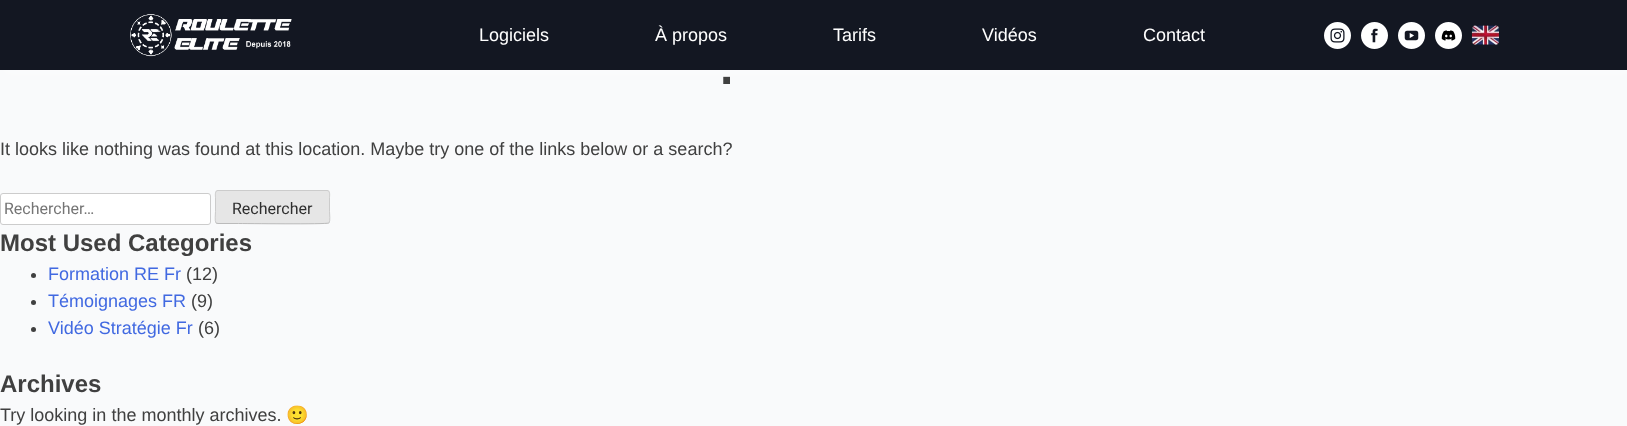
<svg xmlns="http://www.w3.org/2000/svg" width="1627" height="426">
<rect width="100%" height="100%" fill="#f9fafb"/>
<rect x="3" y="3" width="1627" height="70" fill="#ffffff75" filter="blur(7px)"/>
<rect width="1627" height="70" fill="#131722"/>
<image x="130" y="14" width="162" height="43" href="media/1.png"/>
<text x="479" y="41" style="font-family:Liberation Sans;font-size:18px;fill:#fff">Logiciels</text>
<text x="655" y="41" style="font-family:Liberation Sans;font-size:18px;fill:#fff">À propos</text>
<text x="833" y="41" style="font-family:Liberation Sans;font-size:18px;fill:#fff">Tarifs</text>
<text x="982" y="41" style="font-family:Liberation Sans;font-size:18px;fill:#fff">Vidéos</text>
<text x="1143" y="41" style="font-family:Liberation Sans;font-size:18px;fill:#fff">Contact</text>
<image x="1324" y="22" width="27" height="27" href="media/2.png"/>
<image x="1361" y="22" width="27" height="27" href="media/3.png"/>
<image x="1398" y="22" width="27" height="27" href="media/4.png"/>
<image x="1435" y="22" width="27" height="27" href="media/5.png"/>
<image x="1471" y="25" width="28" height="20" href="media/6.png"/>
<text x="720" y="84" style="font-family:Liberation Sans;font-size:48px;font-weight:bold;fill:#404040">.</text>
<text x="0" y="155" style="font-family:Liberation Sans;font-size:18px;fill:#404040">It looks like nothing was found at this location. Maybe try one of the links below or a search?</text>
<rect x="0.5" y="193.5" width="210" height="31" rx="2.5" fill="#fff" stroke="#ccc"/>
<text x="4" y="214" style="font-family:Roboto;font-size:16px;fill:#757575">Rechercher…</text>
<rect x="215" y="190" width="115" height="34" rx="3" fill="#e6e6e6"/>
<path d="M329 223h-.5c-2 1.5-83 .5-92.5 .5h-18l-2-.5" fill="none" stroke="#bbb"/>
<path d="M216 223c-1.5-2-.5-9-.5-11.5v-14c0-1.5-1-7 2.5-7h109c3.5 0 2.5 5.5 2.5 7v14c0 2.5 1 9.5-.5 11.5" fill="none" stroke="#ccc"/>
<text x="232" y="214" style="font-family:Roboto;font-size:16px;fill:#2e2e2e">Rechercher</text>
<text x="0" y="251" style="font-family:Liberation Sans;font-size:24px;font-weight:bold;fill:#404040">Most Used Categories</text>
<circle cx="33.5" cy="275.5" r="2.5" fill="#404040"/>
<text x="48" y="280" style="font-family:Liberation Sans;font-size:18px;fill:#4169e1">Formation RE Fr</text>
<text x="186" y="280" style="font-family:Liberation Sans;font-size:18px;fill:#404040">(12)</text>
<circle cx="33.5" cy="302.5" r="2.5" fill="#404040"/>
<text x="48" y="307" style="font-family:Liberation Sans;font-size:18px;fill:#4169e1">Témoignages FR</text>
<text x="191" y="307" style="font-family:Liberation Sans;font-size:18px;fill:#404040">(9)</text>
<circle cx="33.5" cy="329.5" r="2.5" fill="#404040"/>
<text x="48" y="334" style="font-family:Liberation Sans;font-size:18px;fill:#4169e1">Vidéo Stratégie Fr</text>
<text x="198" y="334" style="font-family:Liberation Sans;font-size:18px;fill:#404040">(6)</text>
<text x="0" y="392" style="font-family:Liberation Sans;font-size:24px;font-weight:bold;fill:#404040">Archives</text>
<text x="0" y="421" style="font-family:Liberation Sans;font-size:18px;fill:#404040">Try looking in the monthly archives.</text>
<text x="286" y="421" style="font-family:Noto Color Emoji;font-size:18px;fill:#404040">🙂</text>
</svg>
